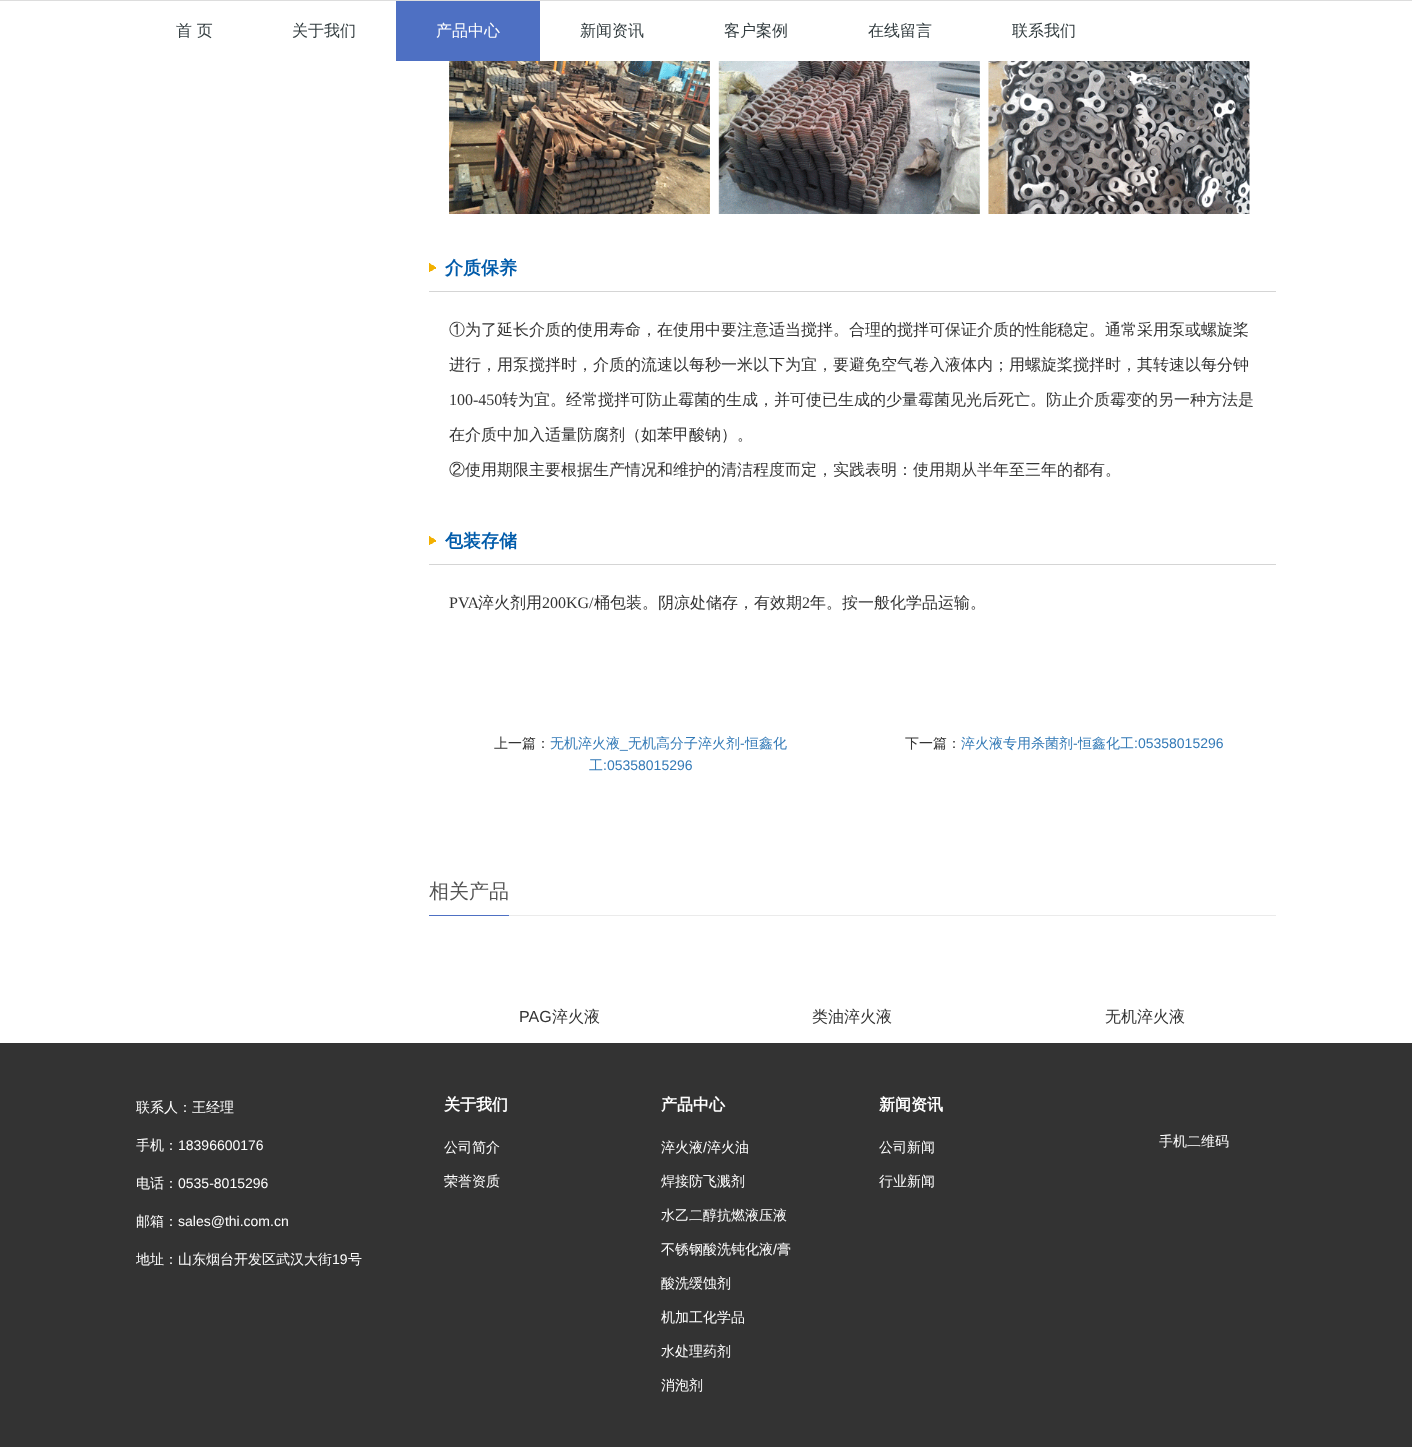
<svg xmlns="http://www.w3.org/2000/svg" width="1412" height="1447">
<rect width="100%" height="100%" fill="#fff"/>
<rect width="1412" height="1" fill="#ddd"/>
<text x="176" y="36" style="font-family:WenQuanYi Zen Hei;font-size:16px;font-weight:500;fill:#333d40">首 页</text>
<text x="292" y="36" style="font-family:WenQuanYi Zen Hei;font-size:16px;font-weight:500;fill:#333d40">关于我们</text>
<rect x="396" y="1" width="144" height="60" fill="#4e70c3"/>
<text x="436" y="36" style="font-family:WenQuanYi Zen Hei;font-size:16px;font-weight:500;fill:#fff">产品中心</text>
<text x="580" y="36" style="font-family:WenQuanYi Zen Hei;font-size:16px;font-weight:500;fill:#333d40">新闻资讯</text>
<text x="724" y="36" style="font-family:WenQuanYi Zen Hei;font-size:16px;font-weight:500;fill:#333d40">客户案例</text>
<text x="868" y="36" style="font-family:WenQuanYi Zen Hei;font-size:16px;font-weight:500;fill:#333d40">在线留言</text>
<text x="1012" y="36" style="font-family:WenQuanYi Zen Hei;font-size:16px;font-weight:500;fill:#333d40">联系我们</text>
<image x="449" y="61" width="801" height="153" href="media/1.png"/>
<image x="429" y="263" width="7" height="9" href="media/2.png"/>
<rect x="429" y="291" width="847" height="1" fill="#d5d5d5"/>
<text x="445" y="274" style="font-family:WenQuanYi Zen Hei;font-size:18px;font-weight:bold;fill:#005baa">介质保养</text>
<text x="449" y="335" style="font-family:WenQuanYi Zen Hei;font-size:16px;font-weight:500;fill:#333">①为了延长介质的使用寿命，在使用中要注意适当搅拌。合理的搅拌可保证介质的性能稳定。通常采用泵或螺旋桨</text>
<text x="449" y="370" style="font-family:WenQuanYi Zen Hei;font-size:16px;font-weight:500;fill:#333">进行，用泵搅拌时，介质的流速以每秒一米以下为宜，要避免空气卷入液体内；用螺旋桨搅拌时，其转速以每分钟</text>
<text x="449" y="405" style="font-family:Liberation Serif;font-size:16px;fill:#333">100-450</text>
<text x="502" y="405" style="font-family:WenQuanYi Zen Hei;font-size:16px;font-weight:500;fill:#333">转为宜。经常搅拌可防止霉菌的生成，并可使已生成的少量霉菌见光后死亡。防止介质霉变的另一种方法是</text>
<text x="449" y="440" style="font-family:WenQuanYi Zen Hei;font-size:16px;font-weight:500;fill:#333">在介质中加入适量防腐剂（如苯甲酸钠）。</text>
<text x="449" y="475" style="font-family:WenQuanYi Zen Hei;font-size:16px;font-weight:500;fill:#333">②使用期限主要根据生产情况和维护的清洁程度而定，实践表明：使用期从半年至三年的都有。</text>
<image x="429" y="536" width="7" height="9" href="media/2.png"/>
<rect x="429" y="564" width="847" height="1" fill="#d5d5d5"/>
<text x="445" y="547" style="font-family:WenQuanYi Zen Hei;font-size:18px;font-weight:bold;fill:#005baa">包装存储</text>
<text x="449" y="608" style="font-family:Liberation Serif;font-size:16px;fill:#333">PVA</text>
<text x="478" y="608" style="font-family:WenQuanYi Zen Hei;font-size:16px;font-weight:500;fill:#333">淬火剂用</text>
<text x="542" y="608" style="font-family:Liberation Serif;font-size:16px;fill:#333">200KG/</text>
<text x="594" y="608" style="font-family:WenQuanYi Zen Hei;font-size:16px;font-weight:500;fill:#333">桶包装。阴凉处储存，有效期</text>
<text x="802" y="608" style="font-family:Liberation Serif;font-size:16px;fill:#333">2</text>
<text x="810" y="608" style="font-family:WenQuanYi Zen Hei;font-size:16px;font-weight:500;fill:#333">年。按一般化学品运输。</text>
<text x="494" y="748" style="font-family:WenQuanYi Zen Hei;font-size:14px;font-weight:500;fill:#333">上一篇：</text>
<text x="550" y="748" style="font-family:WenQuanYi Zen Hei;font-size:14px;font-weight:500;fill:#337ab7">无机淬火液</text>
<text x="620" y="748" style="font-family:Liberation Sans;font-size:14px;fill:#337ab7">_</text>
<text x="628" y="748" style="font-family:WenQuanYi Zen Hei;font-size:14px;font-weight:500;fill:#337ab7">无机高分子淬火剂</text>
<text x="740" y="748" style="font-family:Liberation Sans;font-size:14px;fill:#337ab7">-</text>
<text x="745" y="748" style="font-family:WenQuanYi Zen Hei;font-size:14px;font-weight:500;fill:#337ab7">恒鑫化</text>
<text x="589" y="770" style="font-family:WenQuanYi Zen Hei;font-size:14px;font-weight:500;fill:#337ab7">工</text>
<text x="603" y="770" style="font-family:Liberation Sans;font-size:14px;fill:#337ab7">:05358015296</text>
<text x="905" y="748" style="font-family:WenQuanYi Zen Hei;font-size:14px;font-weight:500;fill:#333">下一篇：</text>
<text x="961" y="748" style="font-family:WenQuanYi Zen Hei;font-size:14px;font-weight:500;fill:#337ab7">淬火液专用杀菌剂</text>
<text x="1073" y="748" style="font-family:Liberation Sans;font-size:14px;fill:#337ab7">-</text>
<text x="1078" y="748" style="font-family:WenQuanYi Zen Hei;font-size:14px;font-weight:500;fill:#337ab7">恒鑫化工</text>
<text x="1134" y="748" style="font-family:Liberation Sans;font-size:14px;fill:#337ab7">:05358015296</text>
<rect x="509" y="915" width="767" height="1" fill="#ebebeb"/>
<rect x="429" y="915" width="80" height="1" fill="#4e70c3"/>
<text x="429" y="898" style="font-family:WenQuanYi Zen Hei;font-size:20px;font-weight:500;fill:#545454">相关产品</text>
<text x="519" y="1022" style="font-family:Liberation Sans;font-size:16px;fill:#333">PAG</text>
<text x="552" y="1022" style="font-family:WenQuanYi Zen Hei;font-size:16px;font-weight:500;fill:#333">淬火液</text>
<text x="812" y="1022" style="font-family:WenQuanYi Zen Hei;font-size:16px;font-weight:500;fill:#333">类油淬火液</text>
<text x="1105" y="1022" style="font-family:WenQuanYi Zen Hei;font-size:16px;font-weight:500;fill:#333">无机淬火液</text>
<rect y="1043" width="1412" height="404" fill="#333"/>
<text x="136" y="1112" style="font-family:WenQuanYi Zen Hei;font-size:14px;font-weight:500;fill:#fff">联系人：王经理</text>
<text x="136" y="1150" style="font-family:WenQuanYi Zen Hei;font-size:14px;font-weight:500;fill:#fff">手机：</text>
<text x="178" y="1150" style="font-family:Liberation Sans;font-size:14px;fill:#fff">18396600176</text>
<text x="136" y="1188" style="font-family:WenQuanYi Zen Hei;font-size:14px;font-weight:500;fill:#fff">电话：</text>
<text x="178" y="1188" style="font-family:Liberation Sans;font-size:14px;fill:#fff">0535-8015296</text>
<text x="136" y="1226" style="font-family:WenQuanYi Zen Hei;font-size:14px;font-weight:500;fill:#fff">邮箱：</text>
<text x="178" y="1226" style="font-family:Liberation Sans;font-size:14px;fill:#fff">sales@thi.com.cn</text>
<text x="136" y="1264" style="font-family:WenQuanYi Zen Hei;font-size:14px;font-weight:500;fill:#fff">地址：山东烟台开发区武汉大街</text>
<text x="332" y="1264" style="font-family:Liberation Sans;font-size:14px;fill:#fff">19</text>
<text x="348" y="1264" style="font-family:WenQuanYi Zen Hei;font-size:14px;font-weight:500;fill:#fff">号</text>
<text x="444" y="1110" style="font-family:WenQuanYi Zen Hei;font-size:16px;font-weight:bold;fill:#fff">关于我们</text>
<text x="444" y="1152" style="font-family:WenQuanYi Zen Hei;font-size:14px;font-weight:500;fill:#fff">公司简介</text>
<text x="444" y="1186" style="font-family:WenQuanYi Zen Hei;font-size:14px;font-weight:500;fill:#fff">荣誉资质</text>
<text x="661" y="1110" style="font-family:WenQuanYi Zen Hei;font-size:16px;font-weight:bold;fill:#fff">产品中心</text>
<text x="661" y="1152" style="font-family:WenQuanYi Zen Hei;font-size:14px;font-weight:500;fill:#fff">淬火液</text>
<text x="703" y="1152" style="font-family:Liberation Sans;font-size:14px;fill:#fff">/</text>
<text x="707" y="1152" style="font-family:WenQuanYi Zen Hei;font-size:14px;font-weight:500;fill:#fff">淬火油</text>
<text x="661" y="1186" style="font-family:WenQuanYi Zen Hei;font-size:14px;font-weight:500;fill:#fff">焊接防飞溅剂</text>
<text x="661" y="1220" style="font-family:WenQuanYi Zen Hei;font-size:14px;font-weight:500;fill:#fff">水乙二醇抗燃液压液</text>
<text x="661" y="1254" style="font-family:WenQuanYi Zen Hei;font-size:14px;font-weight:500;fill:#fff">不锈钢酸洗钝化液</text>
<text x="773" y="1254" style="font-family:Liberation Sans;font-size:14px;fill:#fff">/</text>
<text x="777" y="1254" style="font-family:WenQuanYi Zen Hei;font-size:14px;font-weight:500;fill:#fff">膏</text>
<text x="661" y="1288" style="font-family:WenQuanYi Zen Hei;font-size:14px;font-weight:500;fill:#fff">酸洗缓蚀剂</text>
<text x="661" y="1322" style="font-family:WenQuanYi Zen Hei;font-size:14px;font-weight:500;fill:#fff">机加工化学品</text>
<text x="661" y="1356" style="font-family:WenQuanYi Zen Hei;font-size:14px;font-weight:500;fill:#fff">水处理药剂</text>
<text x="661" y="1390" style="font-family:WenQuanYi Zen Hei;font-size:14px;font-weight:500;fill:#fff">消泡剂</text>
<text x="879" y="1110" style="font-family:WenQuanYi Zen Hei;font-size:16px;font-weight:bold;fill:#fff">新闻资讯</text>
<text x="879" y="1152" style="font-family:WenQuanYi Zen Hei;font-size:14px;font-weight:500;fill:#fff">公司新闻</text>
<text x="879" y="1186" style="font-family:WenQuanYi Zen Hei;font-size:14px;font-weight:500;fill:#fff">行业新闻</text>
<text x="1159" y="1146" style="font-family:WenQuanYi Zen Hei;font-size:14px;font-weight:500;fill:#fff">手机二维码</text>
</svg>
